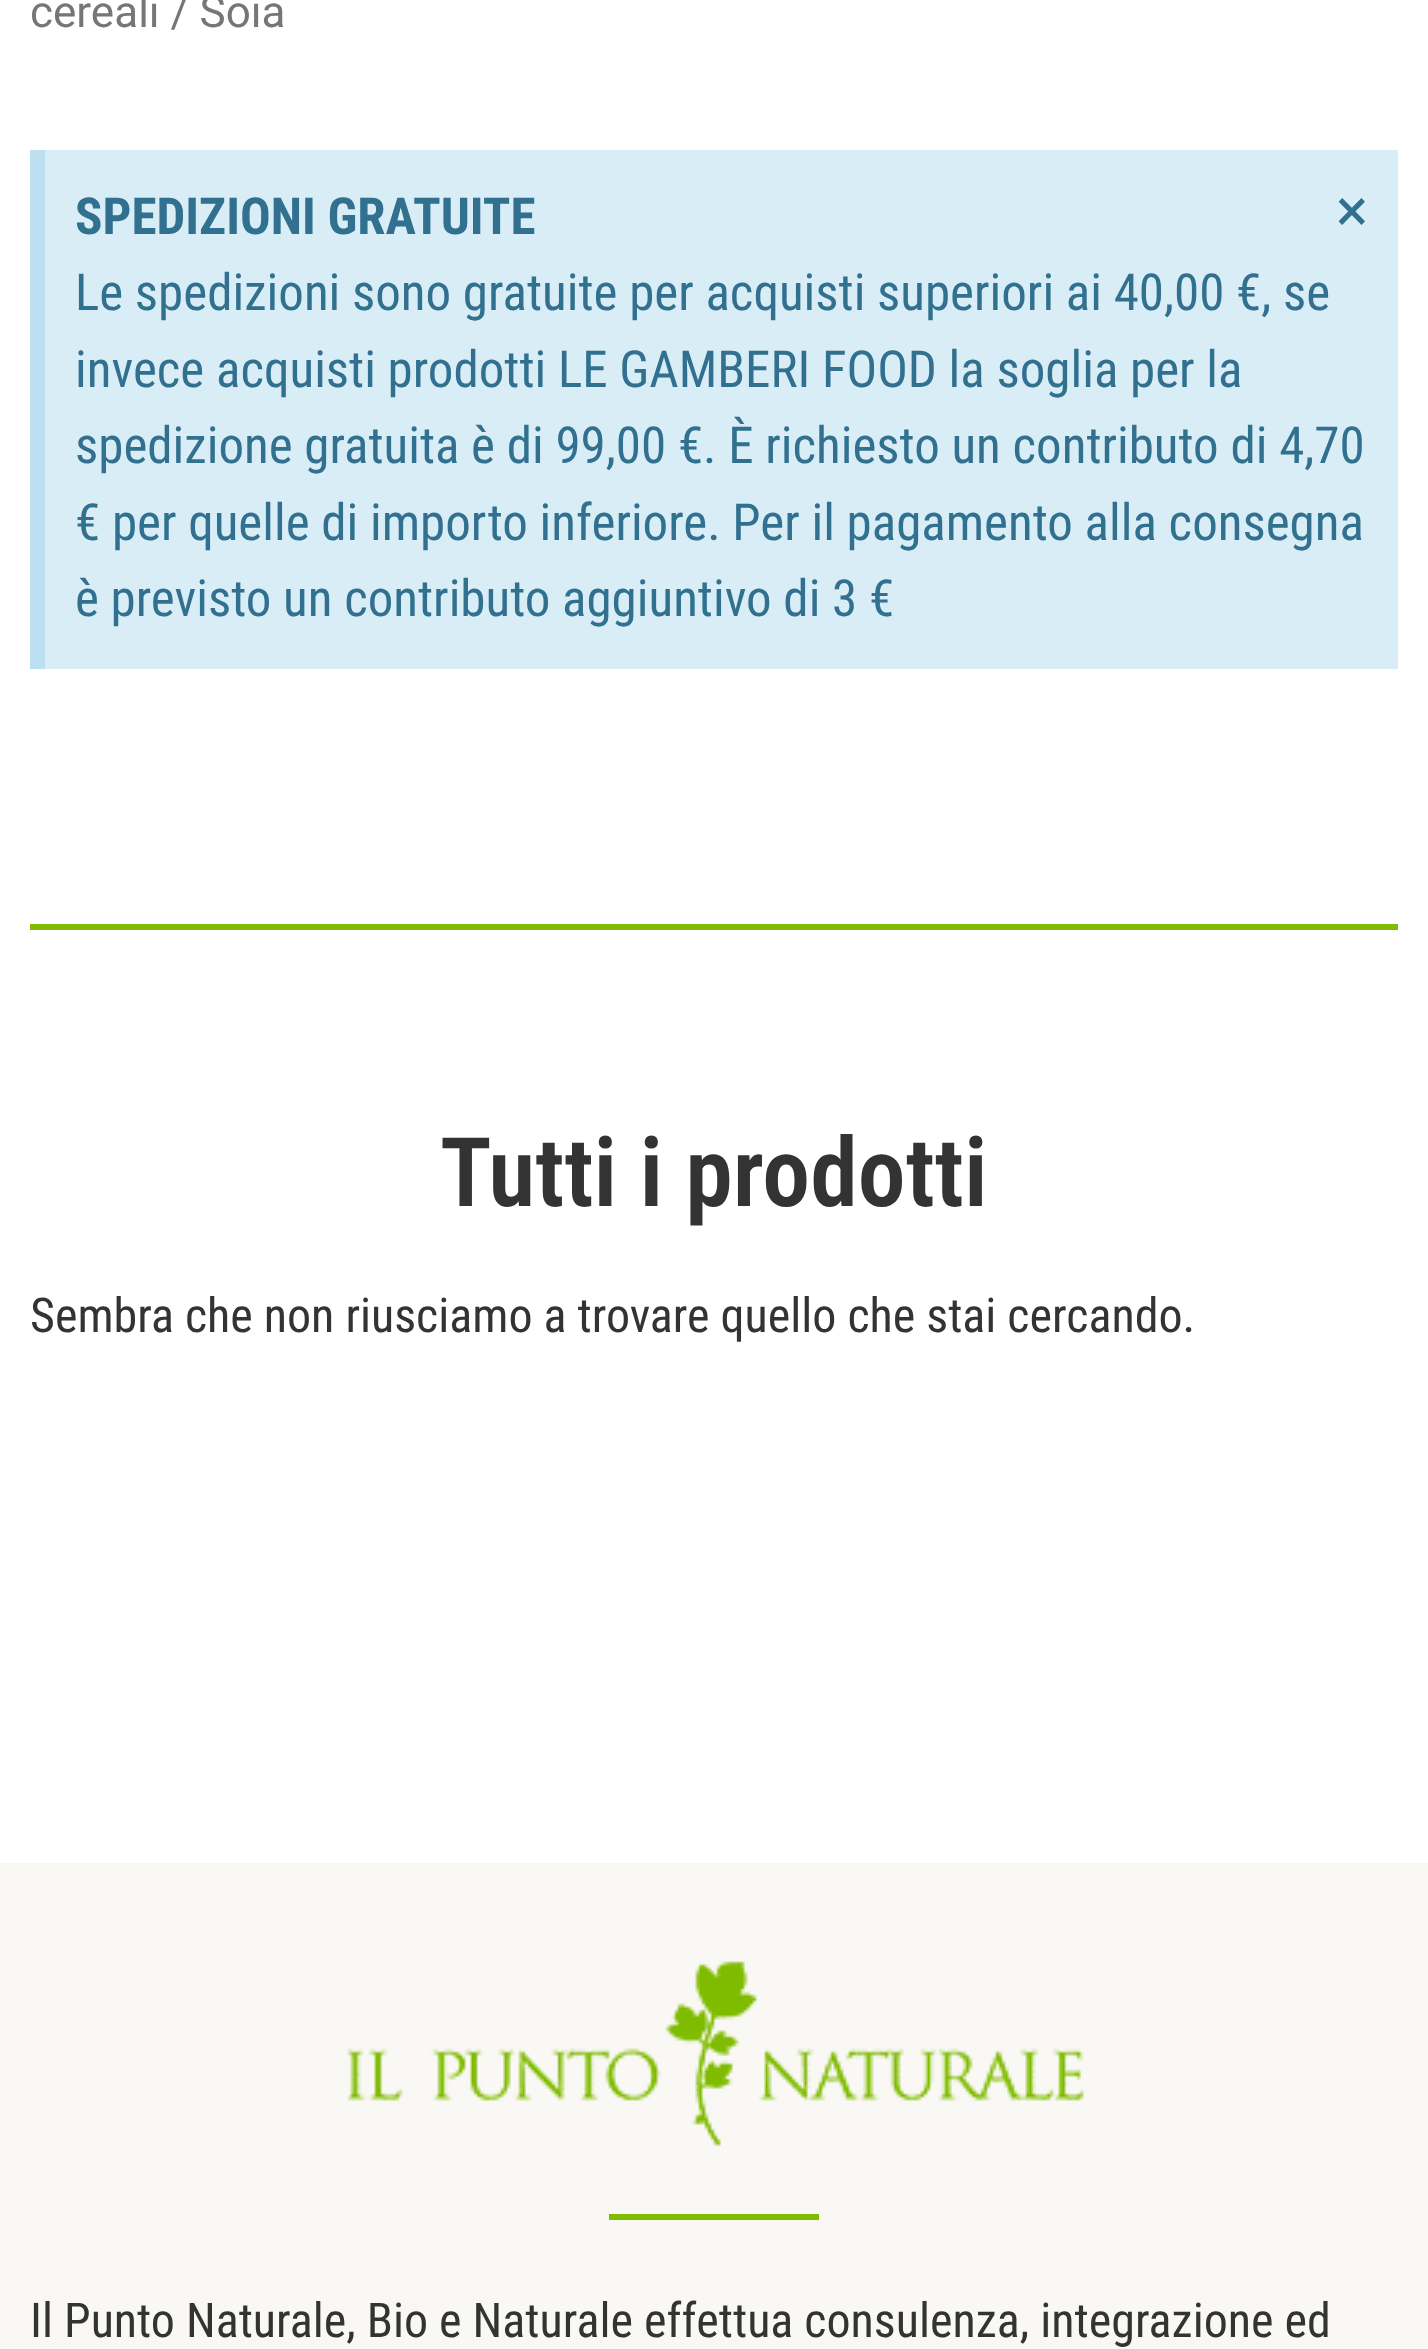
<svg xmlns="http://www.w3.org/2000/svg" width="1428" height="2349">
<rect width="100%" height="100%" fill="#fff"/>
<text x="30" y="27" style="font-family:Roboto;font-size:44px;fill:#767676">cereali / Soia</text>
<rect x="45" y="150" width="1353" height="519" fill="#d9edf7"/>
<rect x="30" y="150" width="15" height="519" fill="#bcdff1"/>
<text x="75" y="234" style="font-family:Roboto Condensed;font-size:51px;font-weight:bold;fill:#31708f">SPEDIZIONI GRATUITE</text>
<text x="1336" y="231" style="font-family:Roboto;font-size:60px;fill:#31708f">×</text>
<text x="75" y="310" style="font-family:Roboto Condensed;font-size:51px;fill:#31708f">Le spedizioni sono gratuite per acquisti superiori ai 40,00 €, se</text>
<text x="75" y="387" style="font-family:Roboto Condensed;font-size:51px;fill:#31708f">invece acquisti prodotti LE GAMBERI FOOD la soglia per la</text>
<text x="75" y="463" style="font-family:Roboto Condensed;font-size:51px;fill:#31708f">spedizione gratuita è di 99,00 €. È richiesto un contributo di 4,70</text>
<text x="75" y="540" style="font-family:Roboto Condensed;font-size:51px;fill:#31708f">€ per quelle di importo inferiore. Per il pagamento alla consegna</text>
<text x="75" y="616" style="font-family:Roboto Condensed;font-size:51px;fill:#31708f">è previsto un contributo aggiuntivo di 3 €</text>
<rect x="30" y="924" width="1368" height="6" fill="#7fbc00"/>
<text x="440" y="1206" style="font-family:Roboto Condensed;font-size:96px;font-weight:600;fill:#333">Tutti i prodotti</text>
<text x="30" y="1332" style="font-family:Roboto Condensed;font-size:48px;fill:#333">Sembra che non riusciamo a trovare quello che stai cercando.</text>
<rect y="1863" width="1428" height="486" fill="#f9f8f4"/>
<image x="347" y="1961" width="738" height="185" href="media/1.png"/>
<rect x="609" y="2214" width="210" height="6" fill="#7fbc00"/>
<text x="30" y="2337" style="font-family:Roboto Condensed;font-size:48px;fill:#333">Il Punto Naturale, Bio e Naturale effettua consulenza, integrazione ed</text>
</svg>
